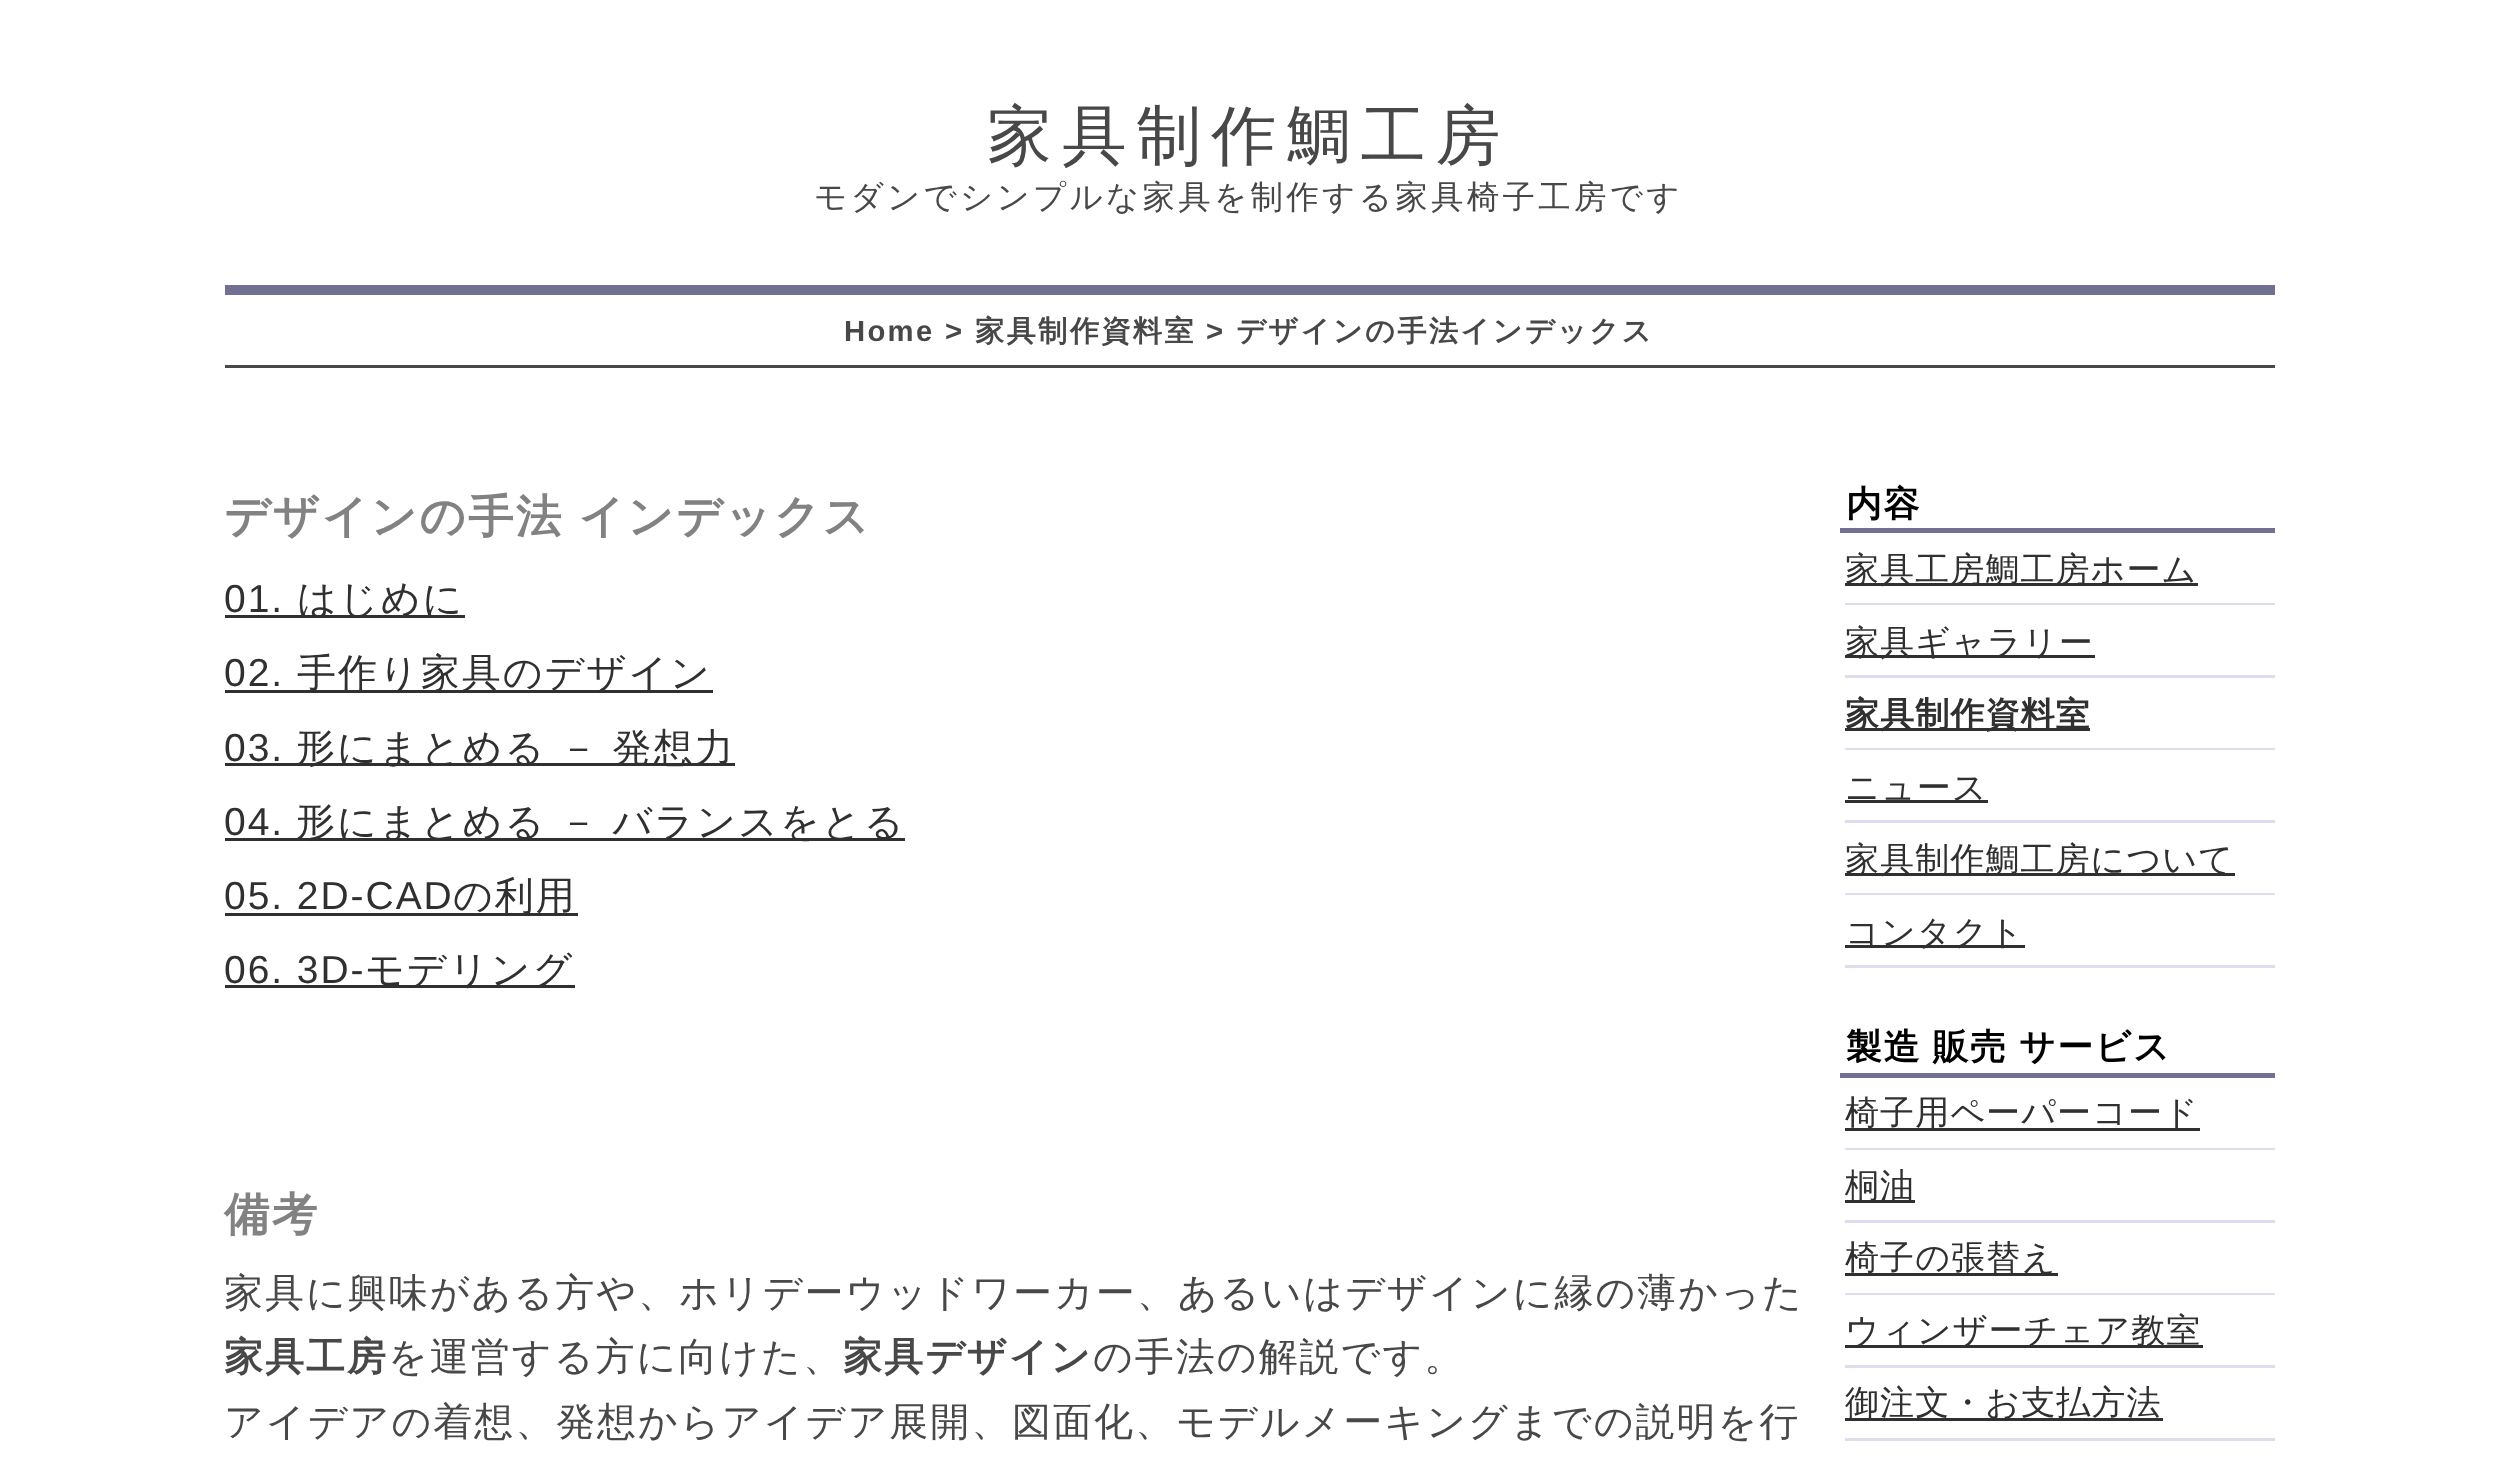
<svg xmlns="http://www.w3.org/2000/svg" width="2496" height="1462">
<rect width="100%" height="100%" fill="#fff"/>
<text x="987" y="158" style="font-family:WenQuanYi Zen Hei;font-size:65px;font-weight:500;letter-spacing:9.75px;fill:#484848">家具制作鯛工房</text>
<text x="814" y="208" style="font-family:WenQuanYi Zen Hei;font-size:32.5px;font-weight:500;letter-spacing:3.25px;fill:#484848">モダンでシンプルな家具を制作する家具椅子工房です</text>
<rect x="225" y="285" width="2050" height="10" fill="#707090"/>
<rect x="225" y="365" width="2050" height="3" fill="#484848"/>
<text x="844" y="341" style="font-family:Liberation Sans;font-size:29.25px;font-weight:bold;letter-spacing:2.3px;fill:#484848">Home &gt;</text>
<text x="975" y="341" style="font-family:WenQuanYi Zen Hei;font-size:29.25px;font-weight:bold;letter-spacing:2.3px;fill:#484848">家具制作資料室</text>
<text x="1206" y="341" style="font-family:Liberation Sans;font-size:29.25px;font-weight:bold;letter-spacing:2.3px;fill:#484848">&gt;</text>
<text x="1236" y="341" style="font-family:WenQuanYi Zen Hei;font-size:29.25px;font-weight:bold;letter-spacing:2.3px;fill:#484848">デザインの手法インデックス</text>
<text x="224" y="532" word-spacing="-1" style="font-family:WenQuanYi Zen Hei;font-size:45.5px;font-weight:bold;letter-spacing:2.25px;fill:#828282">デザインの手法 インデックス</text>
<text x="224" y="612" style="font-family:Liberation Sans;font-size:39px;letter-spacing:1.95px;fill:#303030">01.</text>
<rect x="225" y="615" width="240" height="3" fill="#303030"/>
<text x="297" y="612" style="font-family:WenQuanYi Zen Hei;font-size:39px;font-weight:500;letter-spacing:1.95px;fill:#303030">はじめに</text>
<text x="224" y="686" style="font-family:Liberation Sans;font-size:39px;letter-spacing:1.95px;fill:#303030">02.</text>
<rect x="225" y="690" width="488" height="3" fill="#303030"/>
<text x="297" y="686" style="font-family:WenQuanYi Zen Hei;font-size:39px;font-weight:500;letter-spacing:1.95px;fill:#303030">手作り家具のデザイン</text>
<text x="224" y="761" style="font-family:Liberation Sans;font-size:39px;letter-spacing:1.95px;fill:#303030">03.</text>
<rect x="225" y="763" width="510" height="3" fill="#303030"/>
<text x="296" y="761" word-spacing="-1" style="font-family:WenQuanYi Zen Hei;font-size:39px;font-weight:500;letter-spacing:1.95px;fill:#303030">形にまとめる － 発想力</text>
<text x="224" y="835" style="font-family:Liberation Sans;font-size:39px;letter-spacing:1.95px;fill:#303030">04.</text>
<rect x="225" y="838" width="680" height="3" fill="#303030"/>
<text x="296" y="835" word-spacing="-1" style="font-family:WenQuanYi Zen Hei;font-size:39px;font-weight:500;letter-spacing:1.95px;fill:#303030">形にまとめる － バランスをとる</text>
<text x="224" y="909" style="font-family:Liberation Sans;font-size:39px;letter-spacing:1.95px;fill:#303030">05. 2D-CAD</text>
<rect x="225" y="913" width="353" height="3" fill="#303030"/>
<text x="453" y="909" style="font-family:WenQuanYi Zen Hei;font-size:39px;font-weight:500;letter-spacing:1.95px;fill:#303030">の利用</text>
<text x="224" y="983" style="font-family:Liberation Sans;font-size:39px;letter-spacing:1.95px;fill:#303030">06. 3D-</text>
<rect x="225" y="985" width="350" height="3" fill="#303030"/>
<text x="365" y="983" style="font-family:WenQuanYi Zen Hei;font-size:39px;font-weight:500;letter-spacing:1.95px;fill:#303030">モデリング</text>
<text x="224" y="1230" style="font-family:WenQuanYi Zen Hei;font-size:45.5px;font-weight:bold;letter-spacing:2.25px;fill:#828282">備考</text>
<text x="224" y="1306" style="font-family:WenQuanYi Zen Hei;font-size:39px;font-weight:500;letter-spacing:1.95px;fill:#484848">家具に興味がある方や、ホリデーウッドワーカー、あるいはデザインに縁の薄かった</text>
<text x="224" y="1370" style="font-family:WenQuanYi Zen Hei;font-size:39px;font-weight:bold;letter-spacing:1.95px;fill:#484848">家具工房</text>
<text x="388" y="1370" style="font-family:WenQuanYi Zen Hei;font-size:39px;font-weight:500;letter-spacing:1.95px;fill:#484848">を運営する方に向けた、</text>
<text x="843" y="1370" style="font-family:WenQuanYi Zen Hei;font-size:39px;font-weight:bold;letter-spacing:1.95px;fill:#484848">家具デザイン</text>
<text x="1093" y="1370" style="font-family:WenQuanYi Zen Hei;font-size:39px;font-weight:500;letter-spacing:1.95px;fill:#484848">の手法の解説です。</text>
<text x="224" y="1435" style="font-family:WenQuanYi Zen Hei;font-size:39px;font-weight:500;letter-spacing:1.95px;fill:#484848">アイデアの着想、発想からアイデア展開、図面化、モデルメーキングまでの説明を行</text>
<rect x="1840" y="528" width="435" height="5" fill="#707090"/>
<text x="1846" y="516" style="font-family:WenQuanYi Zen Hei;font-size:35.75px;font-weight:bold;letter-spacing:1.75px;fill:#000">内容</text>
<rect x="1845" y="603" width="430" height="2" fill="#dde"/>
<rect x="1845" y="583" width="353" height="3" fill="#303030"/>
<text x="1845" y="581" style="font-family:WenQuanYi Zen Hei;font-size:34.1px;font-weight:500;letter-spacing:1px;fill:#303030">家具工房鯛工房ホーム</text>
<rect x="1845" y="675" width="430" height="3" fill="#dde"/>
<rect x="1845" y="655" width="250" height="3" fill="#303030"/>
<text x="1845" y="654" style="font-family:WenQuanYi Zen Hei;font-size:34.1px;font-weight:500;letter-spacing:1px;fill:#303030">家具ギャラリー</text>
<rect x="1845" y="748" width="430" height="2" fill="#dde"/>
<rect x="1845" y="728" width="245" height="3" fill="#303030"/>
<text x="1845" y="726" style="font-family:WenQuanYi Zen Hei;font-size:34.1px;font-weight:bold;letter-spacing:1px;fill:#303030">家具制作資料室</text>
<rect x="1845" y="820" width="430" height="3" fill="#dde"/>
<rect x="1845" y="800" width="143" height="3" fill="#303030"/>
<text x="1845" y="799" style="font-family:WenQuanYi Zen Hei;font-size:34.1px;font-weight:500;letter-spacing:1px;fill:#303030">ニュース</text>
<rect x="1845" y="893" width="430" height="2" fill="#dde"/>
<rect x="1845" y="873" width="390" height="3" fill="#303030"/>
<text x="1845" y="871" style="font-family:WenQuanYi Zen Hei;font-size:34.1px;font-weight:500;letter-spacing:1px;fill:#303030">家具制作鯛工房について</text>
<rect x="1845" y="965" width="430" height="3" fill="#dde"/>
<rect x="1845" y="945" width="180" height="3" fill="#303030"/>
<text x="1845" y="944" style="font-family:WenQuanYi Zen Hei;font-size:34.1px;font-weight:500;letter-spacing:1px;fill:#303030">コンタクト</text>
<rect x="1840" y="1073" width="435" height="5" fill="#707090"/>
<text x="1846" y="1059" word-spacing="-1" style="font-family:WenQuanYi Zen Hei;font-size:35.75px;font-weight:bold;letter-spacing:1.75px;fill:#000">製造 販売 サービス</text>
<rect x="1845" y="1148" width="430" height="2" fill="#dde"/>
<rect x="1845" y="1128" width="355" height="3" fill="#303030"/>
<text x="1845" y="1124" style="font-family:WenQuanYi Zen Hei;font-size:34.1px;font-weight:500;letter-spacing:1px;fill:#303030">椅子用ペーパーコード</text>
<rect x="1845" y="1220" width="430" height="3" fill="#dde"/>
<rect x="1845" y="1200" width="70" height="3" fill="#303030"/>
<text x="1845" y="1197" style="font-family:WenQuanYi Zen Hei;font-size:34.1px;font-weight:500;letter-spacing:1px;fill:#303030">桐油</text>
<rect x="1845" y="1293" width="430" height="2" fill="#dde"/>
<rect x="1845" y="1273" width="213" height="3" fill="#303030"/>
<text x="1845" y="1269" style="font-family:WenQuanYi Zen Hei;font-size:34.1px;font-weight:500;letter-spacing:1px;fill:#303030">椅子の張替え</text>
<rect x="1845" y="1365" width="430" height="3" fill="#dde"/>
<rect x="1845" y="1345" width="358" height="3" fill="#303030"/>
<text x="1845" y="1342" style="font-family:WenQuanYi Zen Hei;font-size:34.1px;font-weight:500;letter-spacing:1px;fill:#303030">ウィンザーチェア教室</text>
<rect x="1845" y="1438" width="430" height="3" fill="#dde"/>
<rect x="1845" y="1418" width="318" height="3" fill="#303030"/>
<text x="1845" y="1414" style="font-family:WenQuanYi Zen Hei;font-size:34.1px;font-weight:500;letter-spacing:1px;fill:#303030">御注文・お支払方法</text>
</svg>
